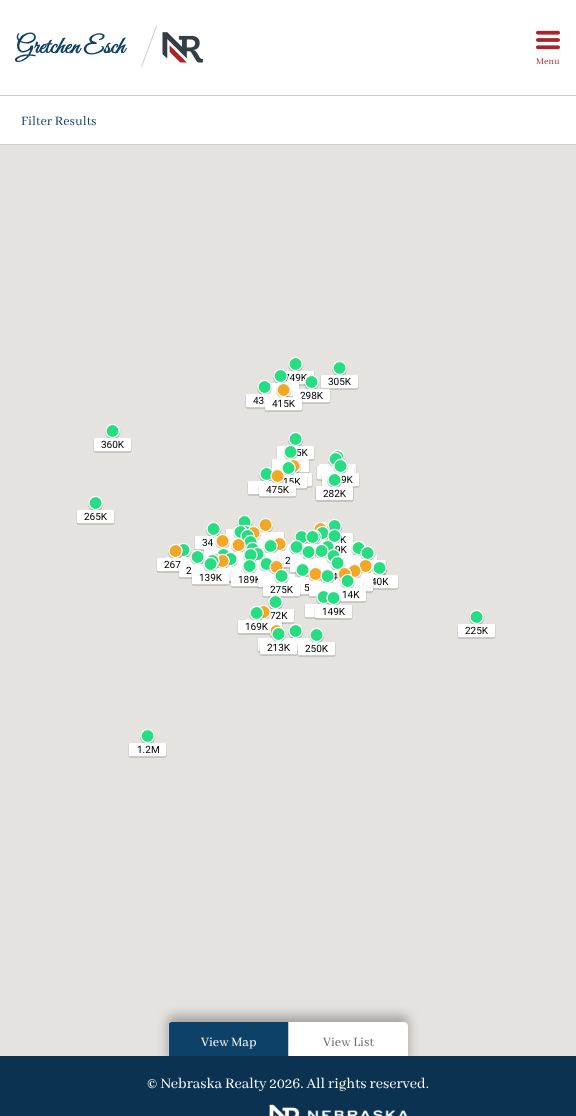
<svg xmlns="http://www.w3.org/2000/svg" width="576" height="1116">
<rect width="100%" height="100%" fill="#fff"/>
<rect y="95" width="576" height="1" fill="#ccc"/>
<text x="16" y="53" style="font-family:Great Vibes;font-size:24px;font-weight:bold;fill:#0e4167">Gretchen Esch</text>
<path d="M156 26h1l-15 41h-1z" fill="#ccc"/>
<image x="162" y="32" width="41" height="31" href="media/1.png"/>
<image x="536" y="30" width="24" height="20" href="media/2.png"/>
<text x="536" y="64" style="font-family:Abhaya Libre;font-size:10px;fill:#ab2228">Menu</text>
<rect y="144" width="576" height="1" fill="#ccc"/>
<text x="21" y="125" style="font-family:Abhaya Libre;font-size:14px;fill:#0e4167">Filter Results</text>
<rect y="145" width="576" height="911" fill="#e5e3df"/>
<image x="276" y="356" width="39" height="30" href="media/3.png"/>
<image x="320" y="360" width="39" height="30" href="media/3.png"/>
<text x="284" y="381" style="font-family:Roboto;font-size:10px;fill:#000">749K</text>
<image x="261" y="368" width="39" height="30" href="media/4.png"/>
<image x="245" y="379" width="38" height="30" href="media/5.png"/>
<text x="328" y="385" style="font-family:Roboto;font-size:10px;fill:#000">305K</text>
<image x="292" y="375" width="39" height="29" href="media/6.png"/>
<text x="253" y="404" style="font-family:Roboto;font-size:10px;fill:#000">43</text>
<text x="300" y="399" style="font-family:Roboto;font-size:10px;fill:#000">298K</text>
<image x="264" y="382" width="39" height="30" href="media/7.png"/>
<text x="272" y="407" style="font-family:Roboto;font-size:10px;fill:#000">415K</text>
<image x="93" y="423" width="39" height="30" href="media/3.png"/>
<image x="276" y="431" width="39" height="30" href="media/3.png"/>
<text x="101" y="448" style="font-family:Roboto;font-size:10px;fill:#000">360K</text>
<text x="296" y="456" style="font-family:Roboto;font-size:10px;fill:#000">5K</text>
<image x="271" y="444" width="39" height="30" href="media/8.png"/>
<image x="318" y="449" width="39" height="25" href="media/9.png"/>
<image x="284" y="458" width="29" height="30" href="media/10.png"/>
<image x="316" y="451" width="39" height="30" href="media/11.png"/>
<image x="269" y="461" width="39" height="29" href="media/13.png"/>
<text x="283" y="485" style="font-family:Roboto;font-size:10px;fill:#000">15K</text>
<image x="247" y="466" width="39" height="30" href="media/12.png"/>
<image x="321" y="458" width="39" height="30" href="media/14.png"/>
<image x="258" y="470" width="39" height="28" href="media/15.png"/>
<text x="341" y="483" style="font-family:Roboto;font-size:10px;fill:#000">9K</text>
<image x="315" y="471" width="39" height="30" href="media/16.png"/>
<image x="315" y="473" width="39" height="29" href="media/17.png"/>
<text x="266" y="493" style="font-family:Roboto;font-size:10px;fill:#000">475K</text>
<text x="323" y="497" style="font-family:Roboto;font-size:10px;fill:#000">282K</text>
<image x="76" y="495" width="39" height="30" href="media/3.png"/>
<text x="84" y="520" style="font-family:Roboto;font-size:10px;fill:#000">265K</text>
<image x="225" y="514" width="39" height="26" href="media/19.png"/>
<image x="194" y="521" width="39" height="30" href="media/18.png"/>
<image x="257" y="518" width="28" height="23" href="media/20.png"/>
<image x="327" y="518" width="27" height="27" href="media/22.png"/>
<text x="340" y="543" style="font-family:Roboto;font-size:10px;fill:#000">K</text>
<image x="318" y="522" width="24" height="22" href="media/24.png"/>
<image x="303" y="522" width="37" height="23" href="media/21.png"/>
<image x="229" y="524" width="36" height="17" href="media/25.png"/>
<image x="221" y="524" width="39" height="25" href="media/23.png"/>
<image x="303" y="525" width="39" height="20" href="media/26.png"/>
<image x="247" y="526" width="20" height="18" href="media/27.png"/>
<image x="228" y="528" width="37" height="22" href="media/28.png"/>
<image x="315" y="528" width="39" height="28" href="media/30.png"/>
<image x="303" y="529" width="20" height="16" href="media/34.png"/>
<image x="282" y="529" width="38" height="23" href="media/29.png"/>
<image x="298" y="529" width="23" height="26" href="media/31.png"/>
<text x="202" y="546" style="font-family:Roboto;font-size:10px;fill:#000">34</text>
<image x="203" y="534" width="31" height="28" href="media/32.png"/>
<image x="231" y="534" width="36" height="19" href="media/33.png"/>
<image x="231" y="537" width="16" height="20" href="media/35.png"/>
<image x="264" y="538" width="35" height="17" href="media/37.png"/>
<image x="263" y="538" width="27" height="30" href="media/36.png"/>
<image x="164" y="542" width="39" height="30" href="media/38.png"/>
<image x="236" y="541" width="36" height="22" href="media/39.png"/>
<text x="335" y="553" style="font-family:Roboto;font-size:10px;fill:#000">9K</text>
<image x="314" y="539" width="33" height="20" href="media/41.png"/>
<image x="277" y="539" width="39" height="30" href="media/40.png"/>
<image x="340" y="540" width="38" height="24" href="media/42.png"/>
<image x="156" y="544" width="39" height="29" href="media/43.png"/>
<image x="238" y="546" width="34" height="26" href="media/44.png"/>
<image x="302" y="544" width="29" height="20" href="media/45.png"/>
<image x="348" y="545" width="39" height="30" href="media/46.png"/>
<text x="164" y="568" style="font-family:Roboto;font-size:10px;fill:#000">267</text>
<image x="178" y="549" width="28" height="30" href="media/47.png"/>
<image x="216" y="548" width="26" height="19" href="media/48.png"/>
<image x="231" y="547" width="39" height="25" href="media/49.png"/>
<text x="285" y="564" style="font-family:Roboto;font-size:10px;fill:#000">2</text>
<image x="289" y="546" width="39" height="28" href="media/50.png"/>
<image x="314" y="548" width="39" height="23" href="media/51.png"/>
<image x="216" y="552" width="32" height="22" href="media/53.png"/>
<image x="196" y="552" width="39" height="30" href="media/52.png"/>
<image x="204" y="553" width="38" height="30" href="media/54.png"/>
<image x="193" y="554" width="39" height="29" href="media/55.png"/>
<image x="320" y="555" width="26" height="27" href="media/56.png"/>
<text x="186" y="574" style="font-family:Roboto;font-size:10px;fill:#000">2</text>
<image x="191" y="556" width="39" height="30" href="media/57.png"/>
<image x="247" y="557" width="28" height="18" href="media/58.png"/>
<image x="230" y="558" width="39" height="30" href="media/59.png"/>
<text x="238" y="583" style="font-family:Roboto;font-size:10px;fill:#000">189K</text>
<image x="257" y="559" width="39" height="30" href="media/60.png"/>
<image x="283" y="562" width="39" height="22" href="media/61.png"/>
<image x="355" y="558" width="30" height="21" href="media/62.png"/>
<text x="332" y="580" style="font-family:Roboto;font-size:10px;fill:#000">4</text>
<image x="296" y="566" width="38" height="30" href="media/63.png"/>
<image x="360" y="562" width="39" height="28" href="media/65.png"/>
<text x="371" y="585" style="font-family:Roboto;font-size:10px;fill:#000">40K</text>
<image x="335" y="564" width="39" height="29" href="media/64.png"/>
<image x="262" y="568" width="39" height="30" href="media/66.png"/>
<image x="325" y="566" width="39" height="23" href="media/67.png"/>
<text x="304" y="591" style="font-family:Roboto;font-size:10px;fill:#000">5</text>
<image x="308" y="568" width="39" height="30" href="media/68.png"/>
<text x="199" y="581" style="font-family:Roboto;font-size:10px;fill:#000">139K</text>
<image x="328" y="573" width="39" height="30" href="media/69.png"/>
<text x="270" y="593" style="font-family:Roboto;font-size:10px;fill:#000">275K</text>
<text x="342" y="598" style="font-family:Roboto;font-size:10px;fill:#000">14K</text>
<image x="304" y="589" width="39" height="30" href="media/70.png"/>
<image x="258" y="596" width="37" height="28" href="media/72.png"/>
<text x="270" y="619" style="font-family:Roboto;font-size:10px;fill:#000">72K</text>
<image x="244" y="605" width="39" height="29" href="media/74.png"/>
<image x="237" y="605" width="39" height="30" href="media/71.png"/>
<image x="314" y="591" width="39" height="29" href="media/73.png"/>
<text x="322" y="615" style="font-family:Roboto;font-size:10px;fill:#000">149K</text>
<image x="457" y="609" width="39" height="30" href="media/3.png"/>
<text x="245" y="630" style="font-family:Roboto;font-size:10px;fill:#000">169K</text>
<image x="283" y="623" width="32" height="30" href="media/75.png"/>
<image x="257" y="624" width="39" height="29" href="media/76.png"/>
<image x="259" y="626" width="39" height="30" href="media/77.png"/>
<image x="297" y="627" width="39" height="30" href="media/78.png"/>
<text x="465" y="634" style="font-family:Roboto;font-size:10px;fill:#000">225K</text>
<text x="267" y="651" style="font-family:Roboto;font-size:10px;fill:#000">213K</text>
<text x="305" y="652" style="font-family:Roboto;font-size:10px;fill:#000">250K</text>
<image x="128" y="728" width="39" height="30" href="media/3.png"/>
<text x="137" y="753" style="font-family:Roboto;font-size:10px;fill:#000">1.2M</text>
<rect x="168" y="1016" width="240" height="44" rx="4" fill="#0000004d" filter="blur(6px)"/>
<path d="M172 1022h232c2 0 4 2 4 4v40h-240v-40c0-2 2-4 4-4z" fill="#fff"/>
<path d="M172 1022h116v44h-120v-40c0-2 2-4 4-4z" fill="#0e4167"/>
<rect x="168" y="1024" width="1" height="32" fill="#ccc"/>
<text x="201" y="1046" style="font-family:Abhaya Libre;font-size:14px;fill:#fff">View Map</text>
<rect x="288" y="1022" width="1" height="34" fill="#ccc"/>
<text x="323" y="1046" style="font-family:Abhaya Libre;font-size:14px;fill:#6a6a70">View List</text>
<rect y="1056" width="576" height="60" fill="#0b3351"/>
<text x="147" y="1088" style="font-family:Abhaya Libre;font-size:16px;fill:#fff">© Nebraska Realty 2026. All rights reserved.</text>
<image x="269" y="1104" width="139" height="12" href="media/79.png"/>
</svg>
